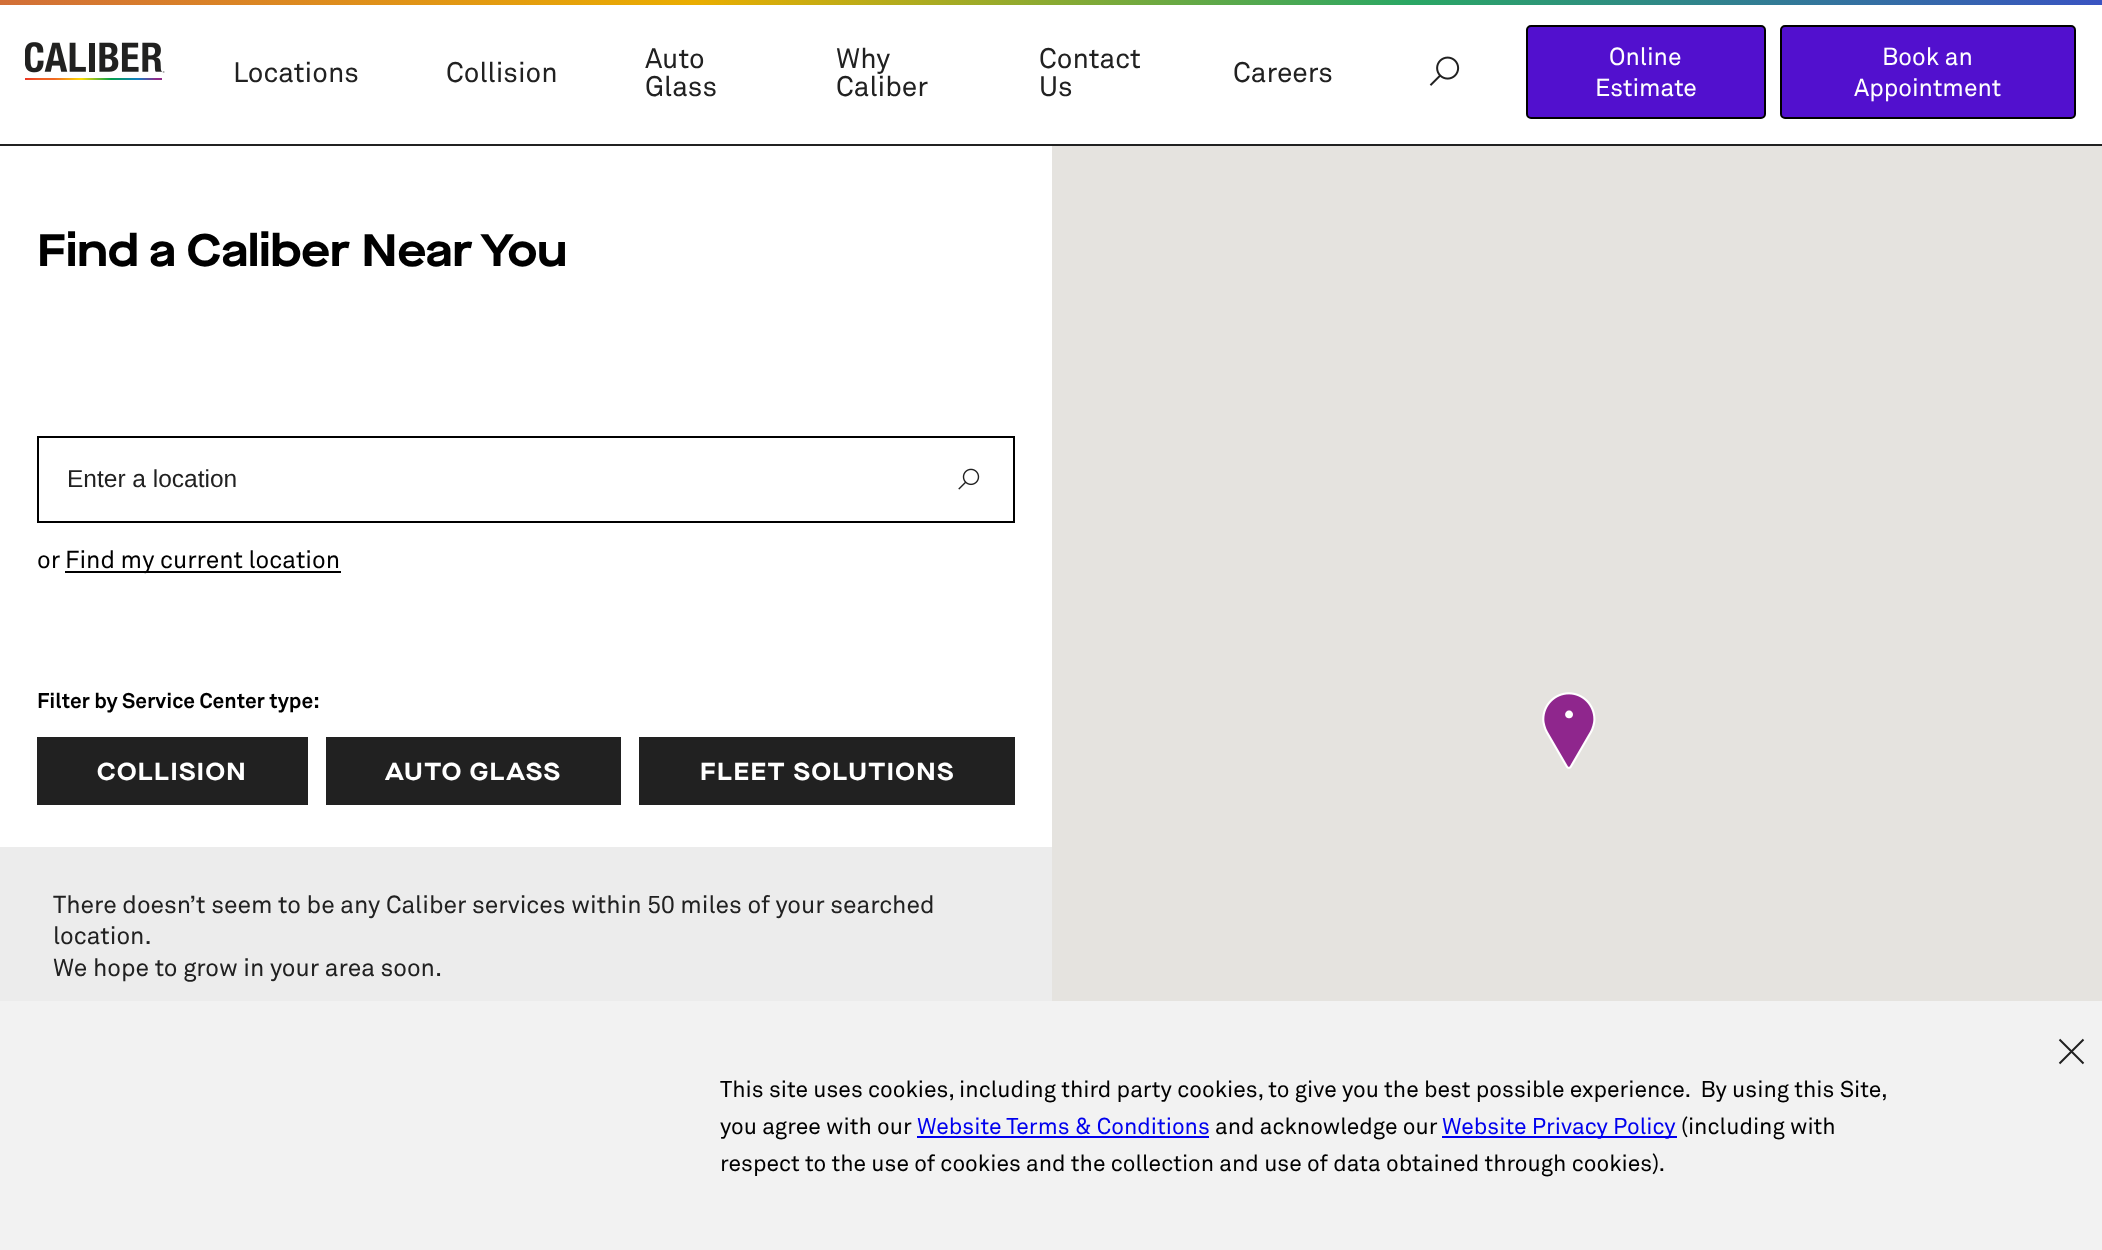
<svg xmlns="http://www.w3.org/2000/svg" width="2102" height="1250">
<defs>
<linearGradient id="g1" gradientUnits="userSpaceOnUse" x1="0" y1="2.6" x2="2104" y2="2.6"><stop offset="0" stop-color="#d26f38"/><stop offset="0.33" stop-color="#eaad00"/><stop offset="0.67" stop-color="#2aa764"/><stop offset="1" stop-color="#3953c2"/></linearGradient>
</defs>
<rect width="100%" height="100%" fill="#fff"/>
<rect y="144" width="2102" height="2" fill="#212121"/>
<rect width="2102" height="5" fill="url(#g1)"/>
<image x="25" y="42" width="140" height="38" href="media/1.png"/>
<text x="233" y="82" style="font-family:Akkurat;font-size:28px;fill:#212121">Locations</text>
<text x="446" y="82" style="font-family:Akkurat;font-size:28px;fill:#212121">Collision</text>
<text x="645" y="68" style="font-family:Akkurat;font-size:28px;fill:#212121">Auto</text>
<text x="645" y="96" style="font-family:Akkurat;font-size:28px;fill:#212121">Glass</text>
<text x="836" y="68" style="font-family:Akkurat;font-size:28px;fill:#212121">Why</text>
<text x="836" y="96" style="font-family:Akkurat;font-size:28px;fill:#212121">Caliber</text>
<text x="1039" y="68" style="font-family:Akkurat;font-size:28px;fill:#212121">Contact</text>
<text x="1039" y="96" style="font-family:Akkurat;font-size:28px;fill:#212121">Us</text>
<text x="1233" y="82" style="font-family:Akkurat;font-size:28px;fill:#212121">Careers</text>
<image x="1429" y="56" width="31" height="30" href="media/2.png"/>
<rect x="1527" y="26" width="238" height="92" rx="4" fill="#5210ce" stroke="#000" stroke-width="2"/>
<text x="1609" y="65" style="font-family:Akkurat;font-size:24.5px;fill:#fff">Online</text>
<text x="1595" y="96" style="font-family:Akkurat;font-size:24.5px;fill:#fff">Estimate</text>
<rect x="1781" y="26" width="294" height="92" rx="4" fill="#5210ce" stroke="#000" stroke-width="2"/>
<text x="1882" y="65" style="font-family:Akkurat;font-size:24.5px;fill:#fff">Book an</text>
<text x="1854" y="96" style="font-family:Akkurat;font-size:24.5px;fill:#fff">Appointment</text>
<text x="37" y="266" style="font-family:Maison Neue;font-size:45.5px;font-weight:bold;fill:#000">Find a Caliber Near You</text>
<rect x="38" y="437" width="976" height="85" fill="none" stroke="#000" stroke-width="2"/>
<text x="67" y="487" style="font-family:Liberation Sans;font-size:24.5px;fill:#212121">Enter a location</text>
<image x="958" y="468" width="22" height="22" href="media/3.png"/>
<text x="37" y="568" style="font-family:Akkurat;font-size:24.5px;fill:#000">or</text>
<rect x="65" y="571" width="276" height="2" fill="#000"/>
<text x="65" y="568" style="font-family:Akkurat;font-size:24.5px;fill:#000">Find my current location</text>
<text x="37" y="708" style="font-family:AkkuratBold;font-size:21px;font-weight:bold;fill:#000">Filter by Service Center type:</text>
<rect x="37" y="737" width="271" height="68" fill="#212121"/>
<text x="97" y="780" style="font-family:Maison Neue;font-size:24.5px;font-weight:bold;letter-spacing:1.4px;fill:#fff">COLLISION</text>
<rect x="326" y="737" width="295" height="68" fill="#212121"/>
<text x="385" y="780" style="font-family:Maison Neue;font-size:24.5px;font-weight:bold;letter-spacing:1.4px;fill:#fff">AUTO GLASS</text>
<rect x="639" y="737" width="376" height="68" fill="#212121"/>
<text x="700" y="780" style="font-family:Maison Neue;font-size:24.5px;font-weight:bold;letter-spacing:1.4px;fill:#fff">FLEET SOLUTIONS</text>
<rect y="847" width="1052" height="154" fill="#ececec"/>
<text x="53" y="913" style="font-family:Akkurat;font-size:24.5px;fill:#212121">There doesn’t seem to be any Caliber services within 50 miles of your searched</text>
<text x="53" y="944" style="font-family:Akkurat;font-size:24.5px;fill:#212121">location.</text>
<text x="53" y="976" style="font-family:Akkurat;font-size:24.5px;fill:#212121">We hope to grow in your area soon.</text>
<rect x="1052" y="146" width="1050" height="855" fill="#e5e3df"/>
<image x="1542" y="692" width="54" height="77" href="media/4.png"/>
<text x="1564" y="724" style="font-family:Liberation Serif;font-size:29px;font-weight:bold;fill:#fff">•</text>
<rect y="1001" width="2102" height="249" fill="#f2f2f2"/>
<path d="M2083.5 1039.5l-24 24m24 0l-24-24" fill="none" stroke="#212121" stroke-width="2" stroke-linejoin="round"/>
<text x="720" y="1097" style="font-family:Akkurat;font-size:22.75px;fill:#000" xml:space="preserve">This site uses cookies, including third party cookies, to give you the best possible experience.  By using this Site,</text>
<text x="720" y="1134" style="font-family:Akkurat;font-size:22.75px;fill:#000">you agree with our</text>
<text x="917" y="1134" style="font-family:Akkurat;font-size:22.75px;fill:#00e">Website Terms &amp; Conditions</text>
<rect x="917" y="1136" width="292" height="2" fill="#00e"/>
<text x="1215" y="1134" style="font-family:Akkurat;font-size:22.75px;fill:#000">and acknowledge our</text>
<rect x="1442" y="1136" width="235" height="2" fill="#00e"/>
<text x="1442" y="1134" style="font-family:Akkurat;font-size:22.75px;fill:#00e">Website Privacy Policy</text>
<text x="1681" y="1134" style="font-family:Akkurat;font-size:22.75px;fill:#000">(including with</text>
<text x="720" y="1171" style="font-family:Akkurat;font-size:22.75px;fill:#000">respect to the use of cookies and the collection and use of data obtained through cookies).</text>
</svg>
